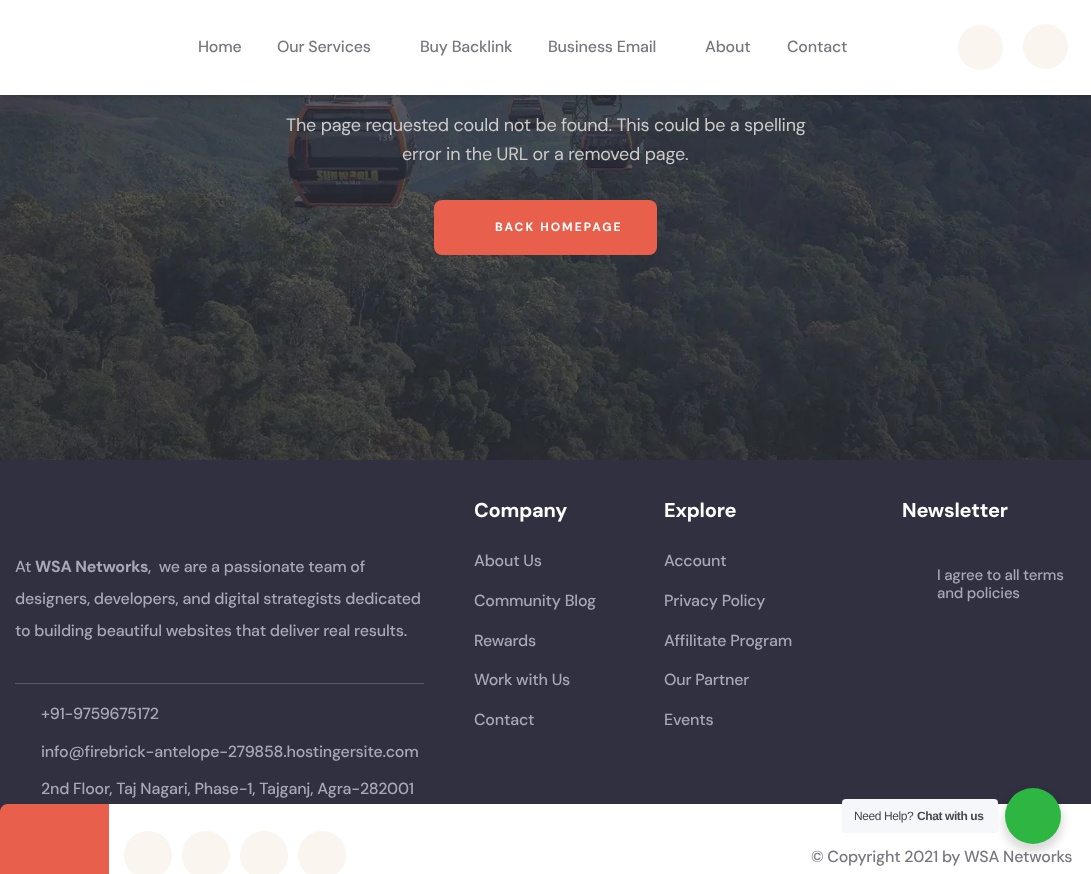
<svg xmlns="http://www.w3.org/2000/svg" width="1091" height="874">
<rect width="100%" height="100%" fill="#fff"/>
<image x="0" y="95" width="1091" height="365" href="media/1.png"/>
<rect x="2" y="3" width="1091" height="95" fill="#0000001a" filter="blur(1.5px)"/>
<rect y="1" width="1091" height="94" fill="#fff"/>
<text x="198" y="52" style="font-family:DM Sans;font-size:16px;font-weight:500;letter-spacing:-0.2px;fill:#787780">Home</text>
<text x="277" y="52" style="font-family:DM Sans;font-size:16px;font-weight:500;letter-spacing:-0.2px;fill:#787780">Our Services</text>
<text x="420" y="52" style="font-family:DM Sans;font-size:16px;font-weight:500;letter-spacing:-0.2px;fill:#787780">Buy Backlink</text>
<text x="548" y="52" style="font-family:DM Sans;font-size:16px;font-weight:500;letter-spacing:-0.2px;fill:#787780">Business Email</text>
<text x="705" y="52" style="font-family:DM Sans;font-size:16px;font-weight:500;letter-spacing:-0.2px;fill:#787780">About</text>
<text x="787" y="52" style="font-family:DM Sans;font-size:16px;font-weight:500;letter-spacing:-0.2px;fill:#787780">Contact</text>
<circle cx="980.5" cy="47.5" r="22.5" fill="#faf5ee"/>
<circle cx="1045.5" cy="46.5" r="22.5" fill="#faf5ee"/>
<text x="286" y="131" style="font-family:DM Sans;font-size:18px;letter-spacing:-0.2px;fill:#ccc">The page requested could not be found. This could be a spelling</text>
<text x="402" y="160" style="font-family:DM Sans;font-size:18px;letter-spacing:-0.2px;fill:#ccc">error in the URL or a removed page.</text>
<rect x="434" y="200" width="223" height="55" rx="8" fill="#e8604c"/>
<text x="495" y="231" style="font-family:DM Sans;font-size:12px;font-weight:bold;letter-spacing:2px;fill:#fff">BACK HOMEPAGE</text>
<rect y="460" width="1091" height="344" fill="#313041"/>
<text x="15" y="572" style="font-family:DM Sans;font-size:16px;font-weight:500;letter-spacing:-0.2px;fill:#a9a8b6">At</text>
<text x="35" y="572" style="font-family:DM Sans;font-size:16px;font-weight:bold;letter-spacing:-0.2px;fill:#a9a8b6">WSA Networks</text>
<text x="148" y="572" style="font-family:DM Sans;font-size:16px;font-weight:500;letter-spacing:-0.2px;fill:#a9a8b6" xml:space="preserve">,  we are a passionate team of</text>
<text x="15" y="604" style="font-family:DM Sans;font-size:16px;font-weight:500;letter-spacing:-0.2px;fill:#a9a8b6">designers, developers, and digital strategists dedicated</text>
<text x="15" y="636" style="font-family:DM Sans;font-size:16px;font-weight:500;letter-spacing:-0.2px;fill:#a9a8b6">to building beautiful websites that deliver real results.</text>
<rect x="15" y="683" width="409" height="1" fill="#5a5967"/>
<text x="41" y="719" style="font-family:DM Sans;font-size:16px;font-weight:500;letter-spacing:-0.2px;fill:#a9a8b6">+91-9759675172</text>
<text x="41" y="757" style="font-family:DM Sans;font-size:16px;font-weight:500;letter-spacing:-0.2px;fill:#a9a8b6">info@firebrick-antelope-279858.hostingersite.com</text>
<text x="41" y="794" style="font-family:DM Sans;font-size:16px;font-weight:500;letter-spacing:-0.2px;fill:#a9a8b6">2nd Floor, Taj Nagari, Phase-1, Tajganj, Agra-282001</text>
<text x="474" y="517" style="font-family:DM Sans;font-size:20px;font-weight:bold;letter-spacing:-0.2px;fill:#fff">Company</text>
<text x="474" y="566" style="font-family:DM Sans;font-size:16px;font-weight:500;letter-spacing:-0.2px;fill:#a9a8b6">About Us</text>
<text x="474" y="606" style="font-family:DM Sans;font-size:16px;font-weight:500;letter-spacing:-0.2px;fill:#a9a8b6">Community Blog</text>
<text x="474" y="646" style="font-family:DM Sans;font-size:16px;font-weight:500;letter-spacing:-0.2px;fill:#a9a8b6">Rewards</text>
<text x="474" y="685" style="font-family:DM Sans;font-size:16px;font-weight:500;letter-spacing:-0.2px;fill:#a9a8b6">Work with Us</text>
<text x="474" y="725" style="font-family:DM Sans;font-size:16px;font-weight:500;letter-spacing:-0.2px;fill:#a9a8b6">Contact</text>
<text x="664" y="517" style="font-family:DM Sans;font-size:20px;font-weight:bold;letter-spacing:-0.2px;fill:#fff">Explore</text>
<text x="664" y="566" style="font-family:DM Sans;font-size:16px;font-weight:500;letter-spacing:-0.2px;fill:#a9a8b6">Account</text>
<text x="664" y="606" style="font-family:DM Sans;font-size:16px;font-weight:500;letter-spacing:-0.2px;fill:#a9a8b6">Privacy Policy</text>
<text x="664" y="646" style="font-family:DM Sans;font-size:16px;font-weight:500;letter-spacing:-0.2px;fill:#a9a8b6">Affilitate Program</text>
<text x="664" y="685" style="font-family:DM Sans;font-size:16px;font-weight:500;letter-spacing:-0.2px;fill:#a9a8b6">Our Partner</text>
<text x="664" y="725" style="font-family:DM Sans;font-size:16px;font-weight:500;letter-spacing:-0.2px;fill:#a9a8b6">Events</text>
<text x="902" y="517" style="font-family:DM Sans;font-size:20px;font-weight:bold;letter-spacing:-0.2px;fill:#fff">Newsletter</text>
<text x="937" y="580" style="font-family:DM Sans;font-size:15px;font-weight:500;letter-spacing:-0.2px;fill:#a9a8b6">I agree to all terms</text>
<text x="937" y="598" style="font-family:DM Sans;font-size:15px;font-weight:500;letter-spacing:-0.2px;fill:#a9a8b6">and policies</text>
<rect y="804" width="8" height="8" fill="#313041"/>
<path d="M8 804h101v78h-109v-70c0-4.5 3.5-8 8-8z" fill="#e8604c"/>
<circle cx="148" cy="855" r="24" fill="#faf5ee"/>
<circle cx="206" cy="855" r="24" fill="#faf5ee"/>
<circle cx="264" cy="855" r="24" fill="#faf5ee"/>
<circle cx="322" cy="855" r="24" fill="#faf5ee"/>
<text x="811" y="862" style="font-family:DM Sans;font-size:16px;font-weight:500;letter-spacing:-0.2px;fill:#787780">© Copyright 2021 by WSA Networks</text>
<rect x="1003" y="792" width="60" height="60" rx="30" fill="#00000024" filter="blur(4px)"/>
<rect x="842" y="799" width="156" height="34" rx="4" fill="#f5f7f9"/>
<text x="854" y="820" style="font-family:Liberation Sans;font-size:12px;letter-spacing:-0.4px;fill:#43474e">Need Help?</text>
<text x="917" y="820" style="font-family:Liberation Sans;font-size:12px;font-weight:bold;letter-spacing:-0.4px;fill:#43474e">Chat with us</text>
<circle cx="1033" cy="816" r="28" fill="#2db742"/>
</svg>
